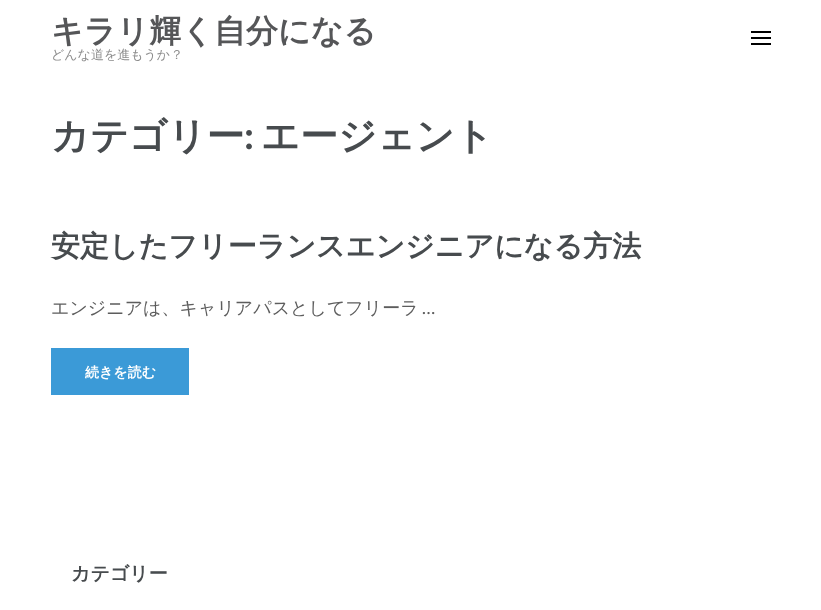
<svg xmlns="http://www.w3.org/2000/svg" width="821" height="610">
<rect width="100%" height="100%" fill="#fff"/>
<text x="51" y="42" style="font-family:WenQuanYi Zen Hei;font-size:32px;font-weight:bold;fill:#555658">キラリ輝く自分になる</text>
<text x="51" y="59" style="font-family:WenQuanYi Zen Hei;font-size:13px;font-weight:500;fill:#8c8c8c">どんな道を進もうか？</text>
<rect x="751" y="31" width="20" height="2" fill="#000"/>
<rect x="751" y="37" width="20" height="2" fill="#000"/>
<rect x="751" y="43" width="20" height="2" fill="#000"/>
<text x="51" y="149" style="font-family:WenQuanYi Zen Hei;font-size:38px;font-weight:bold;fill:#474b4e">カテゴリー</text>
<text x="244" y="149" style="font-family:Lato;font-size:38px;font-weight:bold;fill:#474b4e">:</text>
<text x="261" y="149" style="font-family:WenQuanYi Zen Hei;font-size:38px;font-weight:bold;fill:#474b4e">エージェント</text>
<text x="51" y="256" style="font-family:WenQuanYi Zen Hei;font-size:29px;font-weight:bold;fill:#474b4e">安定したフリーランスエンジニアになる方法</text>
<text x="51" y="314" style="font-family:WenQuanYi Zen Hei;font-size:18px;font-weight:500;fill:#5d5d5d">エンジニアは、キャリアパスとしてフリーラ</text>
<text x="422" y="314" style="font-family:Lato;font-size:18px;fill:#5d5d5d">…</text>
<rect x="51" y="348" width="138" height="47" fill="#3b9ad7"/>
<text x="85" y="377" style="font-family:WenQuanYi Zen Hei;font-size:14px;font-weight:bold;fill:#fff">続きを読む</text>
<text x="71" y="580" style="font-family:WenQuanYi Zen Hei;font-size:19px;font-weight:bold;fill:#474b4e">カテゴリー</text>
</svg>
